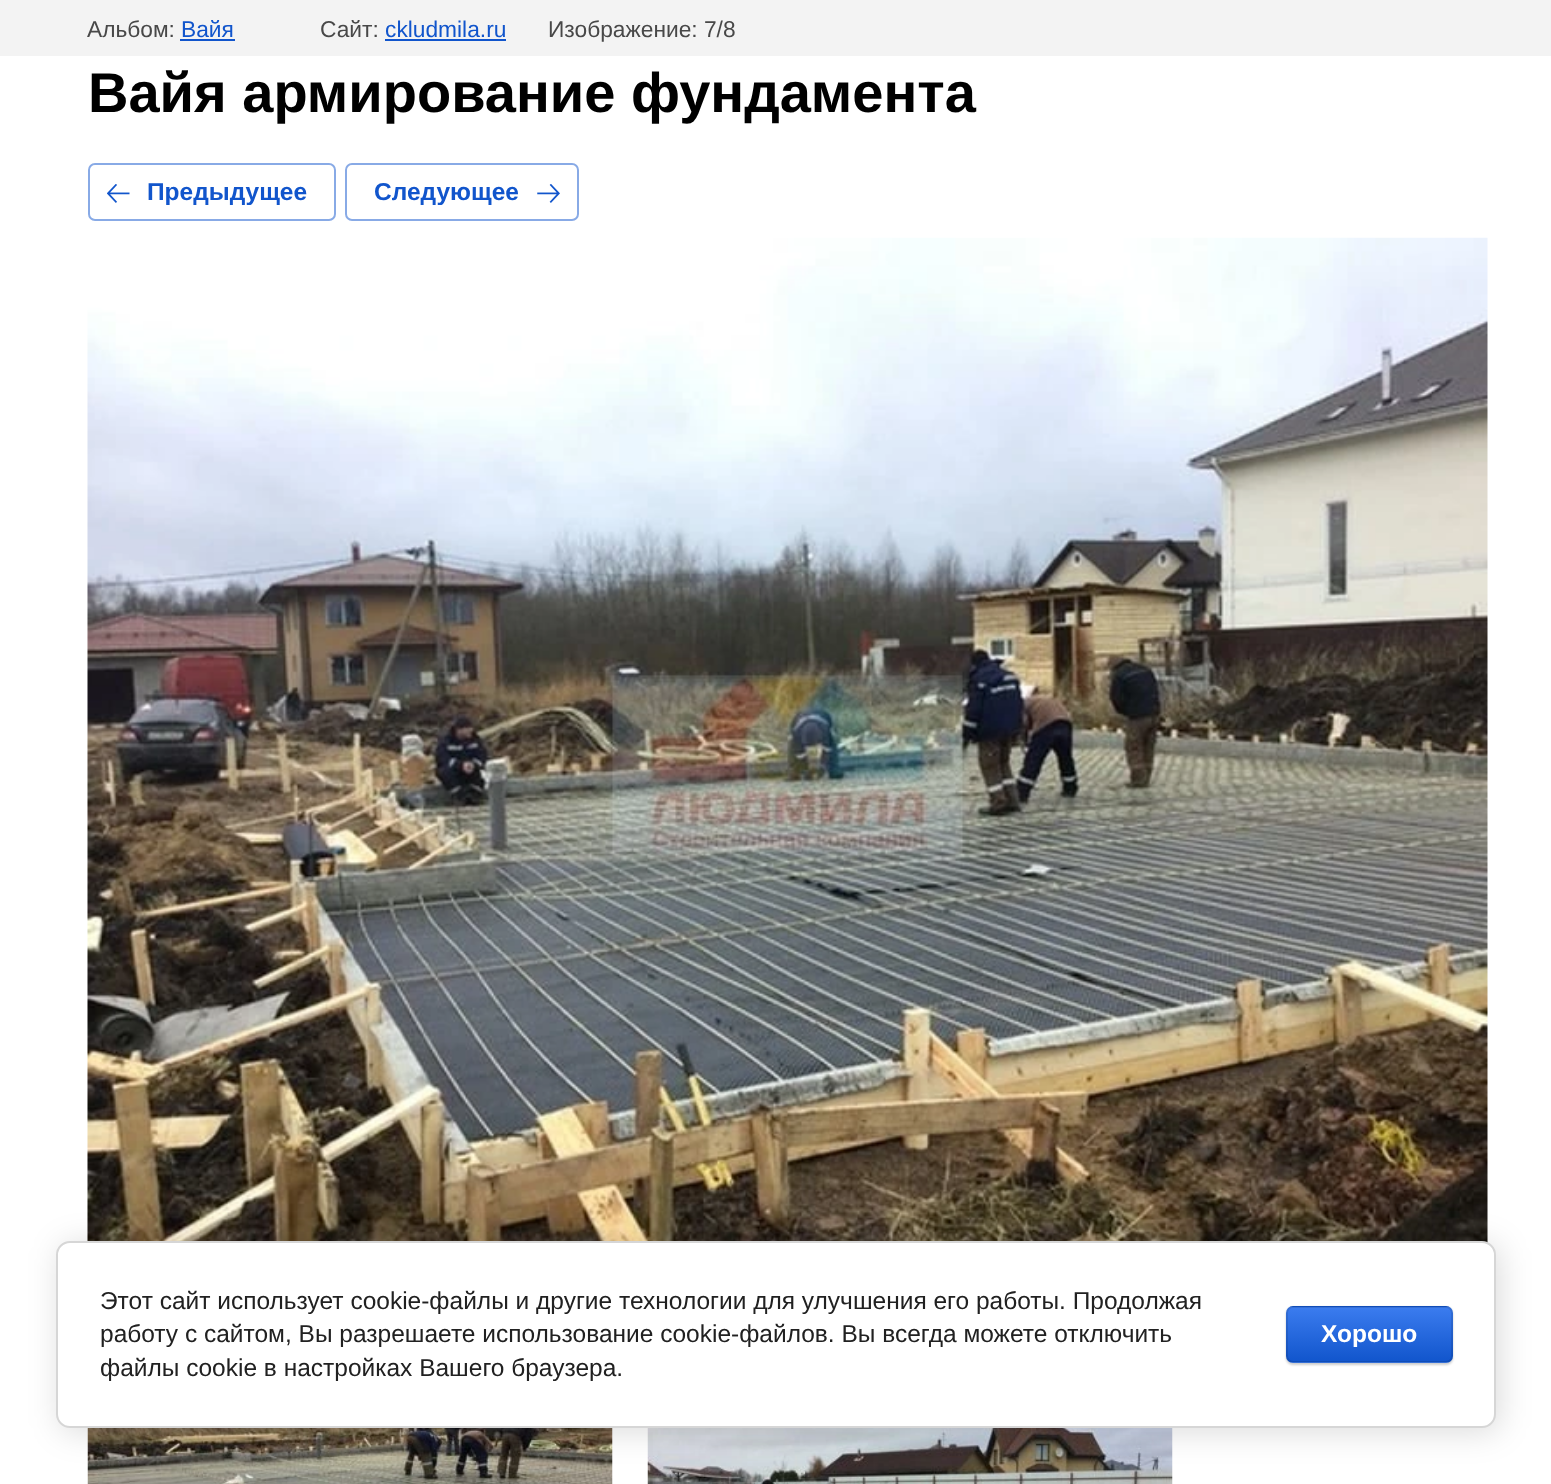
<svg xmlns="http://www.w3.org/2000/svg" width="1551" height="1484">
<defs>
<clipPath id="clip1"><rect x="1286" y="1306" width="167" height="57" rx="7"/></clipPath>
<linearGradient id="g1" gradientUnits="userSpaceOnUse" x1="1369" y1="1253" x2="1369" y2="1307"><stop offset="0" stop-color="#3b7cef"/><stop offset="1" stop-color="#15c"/></linearGradient>
<linearGradient id="g2" gradientUnits="userSpaceOnUse" x1="1369" y1="1307" x2="1369" y2="1362"><stop offset="0" stop-color="#3b7cef"/><stop offset="1" stop-color="#15c"/></linearGradient>
<linearGradient id="g3" gradientUnits="userSpaceOnUse" x1="1369" y1="1362" x2="1369" y2="1416"><stop offset="0" stop-color="#3b7cef"/><stop offset="1" stop-color="#15c"/></linearGradient>
</defs>
<rect width="100%" height="100%" fill="#fff"/>
<rect width="1551" height="56" fill="#f3f3f3"/>
<text x="87" y="37" style="font-family:Liberation Sans;font-size:22.75px;fill:#484848">Альбом:</text>
<text x="181" y="37" style="font-family:Liberation Sans;font-size:22.75px;fill:#15c">Вайя</text>
<rect x="180" y="39" width="55" height="2" fill="#15c"/>
<text x="320" y="37" style="font-family:Liberation Sans;font-size:22.75px;fill:#484848">Сайт:</text>
<text x="385" y="37" style="font-family:Liberation Sans;font-size:22.75px;fill:#15c">ckludmila.ru</text>
<rect x="385" y="39" width="121" height="2" fill="#15c"/>
<text x="548" y="37" style="font-family:Liberation Sans;font-size:22.75px;fill:#484848">Изображение: 7/8</text>
<text x="88" y="112" style="font-family:Liberation Sans;font-size:56px;font-weight:bold;fill:#000">Вайя армирование фундамента</text>
<rect x="89" y="164" width="246" height="56" rx="6" fill="none" stroke="#88aae6" stroke-width="2"/>
<image x="107" y="184" width="23" height="19" href="media/1.png"/>
<text x="147" y="200" style="font-family:Liberation Sans;font-size:24.5px;font-weight:bold;fill:#15c">Предыдущее</text>
<rect x="346" y="164" width="232" height="56" rx="6" fill="none" stroke="#88aae6" stroke-width="2"/>
<text x="374" y="200" style="font-family:Liberation Sans;font-size:24.5px;font-weight:bold;fill:#15c">Следующее</text>
<image x="537" y="184" width="23" height="19" href="media/2.png"/>
<image x="87" y="237" width="1401" height="1006" href="media/3.png"/>
<image x="87" y="1428" width="526" height="56" href="media/4.png"/>
<image x="647" y="1428" width="526" height="56" href="media/5.png"/>
<rect x="60" y="1244" width="1440" height="188" rx="14" fill="#00000024" filter="blur(16px)"/>
<rect x="57" y="1242" width="1438" height="185" rx="13" fill="#fff" stroke="#d6d6d6" stroke-width="2"/>
<text x="100" y="1309" style="font-family:Liberation Sans;font-size:24.5px;fill:#212121">Этот сайт использует cookie-файлы и другие технологии для улучшения его работы. Продолжая</text>
<text x="100" y="1342" style="font-family:Liberation Sans;font-size:24.5px;fill:#212121">работу с сайтом, Вы разрешаете использование cookie-файлов. Вы всегда можете отключить</text>
<text x="100" y="1376" style="font-family:Liberation Sans;font-size:24.5px;fill:#212121">файлы cookie в настройках Вашего браузера.</text>
<rect x="1286" y="1307" width="167" height="58" rx="7" fill="#00000033" filter="blur(1px)"/>
<g clip-path="url(#clip1)">
<rect x="1286" y="1306" width="167" height="1" fill="url(#g1)"/>
<rect x="1286" y="1307" width="167" height="55" fill="url(#g2)"/>
<rect x="1286" y="1362" width="167" height="1" fill="url(#g3)"/>
</g>
<rect x="1287" y="1307" width="165" height="55" rx="6" fill="none" stroke="#0000001a" stroke-width="2"/>
<text x="1321" y="1342" style="font-family:Liberation Sans;font-size:24.5px;font-weight:bold;fill:#fff">Хорошо</text>
</svg>
